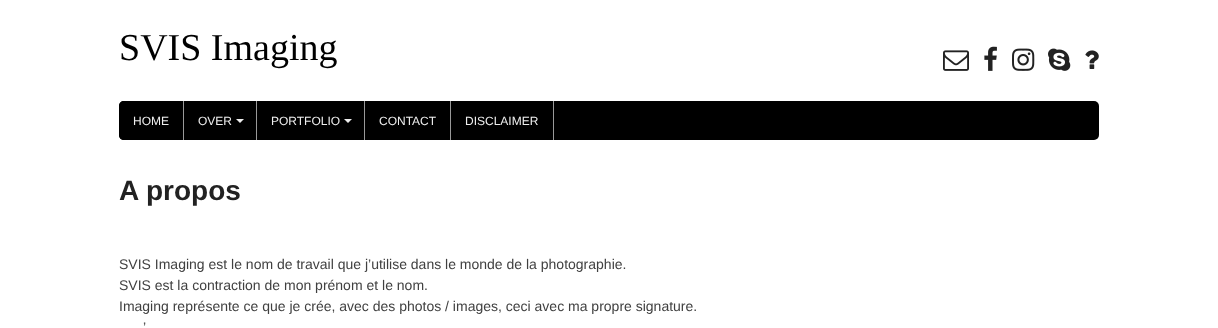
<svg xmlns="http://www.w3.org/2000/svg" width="1218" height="328">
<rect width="100%" height="100%" fill="#fff"/>
<text x="119" y="60" style="font-family:Liberation Serif;font-size:38px;fill:#000">SVIS Imaging</text>
<image x="943" y="50" width="26" height="21" href="media/1.png"/>
<image x="984" y="46" width="13" height="25" href="media/2.png"/>
<image x="1012" y="48" width="23" height="23" href="media/3.png"/>
<image x="1048" y="48" width="23" height="23" href="media/4.png"/>
<image x="1085" y="50" width="14" height="19" href="media/5.png"/>
<rect x="119" y="101" width="980" height="39" rx="5" fill="#000"/>
<rect x="183" y="101" width="1" height="39" fill="#999"/>
<path d="M124 101h59v39h-59c-3 0-5-2-5-5v-29c0-3 2-5 5-5z" fill="#000"/>
<text x="133" y="125" style="font-family:Liberation Sans;font-size:12px;fill:#eee">HOME</text>
<rect x="256" y="101" width="1" height="39" fill="#999"/>
<text x="198" y="125" style="font-family:Liberation Sans;font-size:12px;fill:#eee">OVER</text>
<path d="M236 119h8l-4 4z" fill="#eee"/>
<rect x="364" y="101" width="1" height="39" fill="#999"/>
<text x="271" y="125" style="font-family:Liberation Sans;font-size:12px;fill:#eee">PORTFOLIO</text>
<path d="M344 119h8l-4 4z" fill="#eee"/>
<rect x="450" y="101" width="1" height="39" fill="#999"/>
<text x="379" y="125" style="font-family:Liberation Sans;font-size:12px;fill:#eee">CONTACT</text>
<rect x="553" y="101" width="1" height="39" fill="#999"/>
<text x="465" y="125" style="font-family:Liberation Sans;font-size:12px;fill:#eee">DISCLAIMER</text>
<text x="119" y="200" style="font-family:Liberation Sans;font-size:28px;font-weight:bold;fill:#222">A propos</text>
<text x="119" y="269" style="font-family:Liberation Sans;font-size:14px;fill:#404040">SVIS Imaging est le nom de travail que j’utilise dans le monde de la photographie.</text>
<text x="119" y="290" style="font-family:Liberation Sans;font-size:14px;fill:#404040">SVIS est la contraction de mon prénom et le nom.</text>
<text x="119" y="311" style="font-family:Liberation Sans;font-size:14px;fill:#404040">Imaging représente ce que je crée, avec des photos / images, ceci avec ma propre signature.</text>
<text x="143" y="332" style="font-family:Liberation Sans;font-size:14px;fill:#404040">’</text>
</svg>
